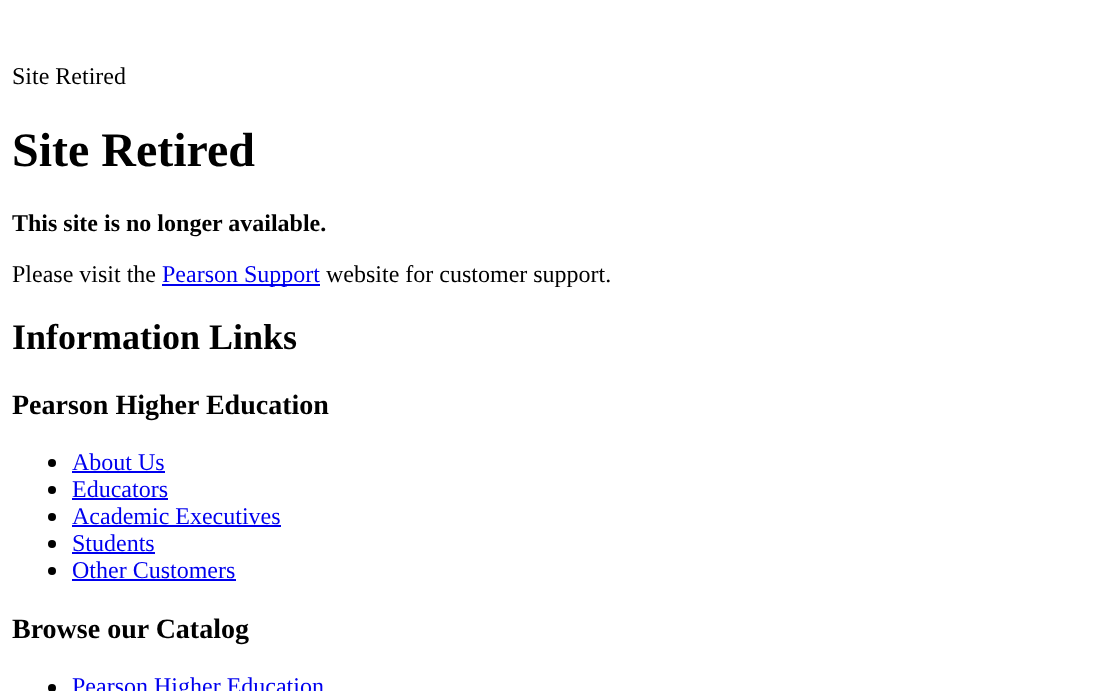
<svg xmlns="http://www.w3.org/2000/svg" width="1116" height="691">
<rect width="100%" height="100%" fill="#fff"/>
<text x="12" y="84" style="font-family:Liberation Serif;font-size:24px;fill:#000">Site Retired</text>
<text x="12" y="166" style="font-family:Liberation Serif;font-size:48px;font-weight:bold;fill:#000">Site Retired</text>
<text x="12" y="231" style="font-family:Liberation Serif;font-size:24px;font-weight:bold;fill:#000">This site is no longer available.</text>
<text x="12" y="282" style="font-family:Liberation Serif;font-size:24px;fill:#000">Please visit the</text>
<rect x="162" y="284" width="158" height="2" fill="#00e"/>
<text x="162" y="282" style="font-family:Liberation Serif;font-size:24px;fill:#00e">Pearson Support</text>
<text x="326" y="282" style="font-family:Liberation Serif;font-size:24px;fill:#000">website for customer support.</text>
<text x="12" y="349" style="font-family:Liberation Serif;font-size:36px;font-weight:bold;fill:#000">Information Links</text>
<text x="12" y="414" style="font-family:Liberation Serif;font-size:28px;font-weight:bold;fill:#000">Pearson Higher Education</text>
<circle cx="52" cy="463" r="4" fill="#000"/>
<text x="72" y="470" style="font-family:Liberation Serif;font-size:24px;fill:#00e">About Us</text>
<rect x="72" y="471" width="93" height="2" fill="#00e"/>
<circle cx="52" cy="490" r="4" fill="#000"/>
<text x="72" y="497" style="font-family:Liberation Serif;font-size:24px;fill:#00e">Educators</text>
<rect x="72" y="498" width="96" height="2" fill="#00e"/>
<circle cx="52" cy="517" r="4" fill="#000"/>
<text x="72" y="524" style="font-family:Liberation Serif;font-size:24px;fill:#00e">Academic Executives</text>
<rect x="72" y="525" width="209" height="2" fill="#00e"/>
<circle cx="52" cy="544" r="4" fill="#000"/>
<text x="72" y="551" style="font-family:Liberation Serif;font-size:24px;fill:#00e">Students</text>
<rect x="72" y="552" width="83" height="2" fill="#00e"/>
<circle cx="52" cy="571" r="4" fill="#000"/>
<text x="72" y="578" style="font-family:Liberation Serif;font-size:24px;fill:#00e">Other Customers</text>
<rect x="72" y="579" width="164" height="2" fill="#00e"/>
<text x="12" y="638" style="font-family:Liberation Serif;font-size:28px;font-weight:bold;fill:#000">Browse our Catalog</text>
<circle cx="52" cy="688" r="4" fill="#000"/>
<text x="72" y="694" style="font-family:Liberation Serif;font-size:24px;fill:#00e">Pearson Higher Education</text>
</svg>
